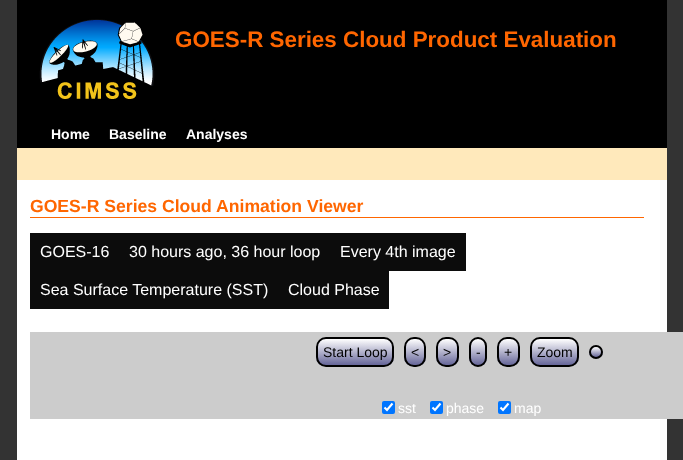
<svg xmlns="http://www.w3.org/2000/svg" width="683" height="460">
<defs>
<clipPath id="clip1"><rect x="316" y="337" width="78" height="30" rx="10"/></clipPath>
<linearGradient id="g1" gradientUnits="userSpaceOnUse" x1="355" y1="339" x2="355" y2="365"><stop offset="0" stop-color="#fff"/><stop offset="1" stop-color="#669"/></linearGradient>
<clipPath id="clip2"><rect x="404" y="337" width="22" height="30" rx="10"/></clipPath>
<linearGradient id="g2" gradientUnits="userSpaceOnUse" x1="415" y1="339" x2="415" y2="365"><stop offset="0" stop-color="#fff"/><stop offset="1" stop-color="#669"/></linearGradient>
<clipPath id="clip3"><rect x="436" y="337" width="23" height="30" rx="10"/></clipPath>
<linearGradient id="g3" gradientUnits="userSpaceOnUse" x1="448" y1="339" x2="448" y2="365"><stop offset="0" stop-color="#fff"/><stop offset="1" stop-color="#669"/></linearGradient>
<clipPath id="clip4"><rect x="469" y="337" width="18" height="30" rx="9"/></clipPath>
<linearGradient id="g4" gradientUnits="userSpaceOnUse" x1="478" y1="339" x2="478" y2="365"><stop offset="0" stop-color="#fff"/><stop offset="1" stop-color="#669"/></linearGradient>
<clipPath id="clip5"><rect x="497" y="337" width="23" height="30" rx="10"/></clipPath>
<linearGradient id="g5" gradientUnits="userSpaceOnUse" x1="509" y1="339" x2="509" y2="365"><stop offset="0" stop-color="#fff"/><stop offset="1" stop-color="#669"/></linearGradient>
<clipPath id="clip6"><rect x="530" y="337" width="49" height="30" rx="10"/></clipPath>
<linearGradient id="g6" gradientUnits="userSpaceOnUse" x1="555" y1="339" x2="555" y2="365"><stop offset="0" stop-color="#fff"/><stop offset="1" stop-color="#669"/></linearGradient>
<clipPath id="clip7"><rect x="589" y="345" width="14" height="14" rx="7"/></clipPath>
<linearGradient id="g7" gradientUnits="userSpaceOnUse" x1="596" y1="347" x2="596" y2="357"><stop offset="0" stop-color="#fff"/><stop offset="1" stop-color="#669"/></linearGradient>
</defs>
<rect width="100%" height="100%" fill="#333"/>
<rect x="17" width="650" height="148" fill="#000"/>
<image x="39" y="19" width="116" height="80" href="media/1.png"/>
<text x="175" y="47" style="font-family:Liberation Sans;font-size:22.4px;font-weight:bold;fill:#f60">GOES-R Series Cloud Product Evaluation</text>
<text x="51" y="139" style="font-family:Liberation Sans;font-size:14px;font-weight:bold;fill:#fff">Home</text>
<text x="109" y="139" style="font-family:Liberation Sans;font-size:14px;font-weight:bold;fill:#fff">Baseline</text>
<text x="186" y="139" style="font-family:Liberation Sans;font-size:14px;font-weight:bold;fill:#fff">Analyses</text>
<rect x="17" y="148" width="650" height="32" fill="#ffe9bb"/>
<rect x="17" y="180" width="650" height="280" fill="#fff"/>
<rect x="30" y="217" width="614" height="1" fill="#f60"/>
<text x="30" y="212" style="font-family:Liberation Sans;font-size:17.6px;font-weight:bold;fill:#f60">GOES-R Series Cloud Animation Viewer</text>
<rect x="30" y="233" width="436" height="38" fill="#0c0c0c"/>
<text x="40" y="257" style="font-family:Liberation Sans;font-size:16px;fill:#fff">GOES-16</text>
<text x="129" y="257" style="font-family:Liberation Sans;font-size:16px;fill:#fff">30 hours ago, 36 hour loop</text>
<text x="340" y="257" style="font-family:Liberation Sans;font-size:16px;fill:#fff">Every 4th image</text>
<rect x="30" y="271" width="359" height="38" fill="#0c0c0c"/>
<text x="40" y="295" style="font-family:Liberation Sans;font-size:16px;fill:#fff">Sea Surface Temperature (SST)</text>
<text x="288" y="295" style="font-family:Liberation Sans;font-size:16px;fill:#fff">Cloud Phase</text>
<rect x="30" y="332" width="653" height="40" fill="#ccc"/>
<g clip-path="url(#clip1)">
<rect x="316" y="339" width="78" height="26" fill="url(#g1)"/>
</g>
<rect x="317" y="338" width="76" height="28" rx="9" fill="none" stroke="#000" stroke-width="2"/>
<text x="323" y="357" style="font-family:Liberation Sans;font-size:14px;fill:#000">Start Loop</text>
<g clip-path="url(#clip2)">
<rect x="404" y="339" width="22" height="26" fill="url(#g2)"/>
</g>
<rect x="405" y="338" width="20" height="28" rx="9" fill="none" stroke="#000" stroke-width="2"/>
<text x="411" y="357" style="font-family:Liberation Sans;font-size:14px;fill:#000">&lt;</text>
<g clip-path="url(#clip3)">
<rect x="436" y="339" width="23" height="26" fill="url(#g3)"/>
</g>
<rect x="437" y="338" width="21" height="28" rx="9" fill="none" stroke="#000" stroke-width="2"/>
<text x="443" y="357" style="font-family:Liberation Sans;font-size:14px;fill:#000">&gt;</text>
<g clip-path="url(#clip4)">
<rect x="469" y="339" width="18" height="26" fill="url(#g4)"/>
</g>
<rect x="470" y="338" width="16" height="28" rx="8" fill="none" stroke="#000" stroke-width="2"/>
<text x="476" y="357" style="font-family:Liberation Sans;font-size:14px;fill:#000">-</text>
<g clip-path="url(#clip5)">
<rect x="497" y="339" width="23" height="26" fill="url(#g5)"/>
</g>
<rect x="498" y="338" width="21" height="28" rx="9" fill="none" stroke="#000" stroke-width="2"/>
<text x="504" y="357" style="font-family:Liberation Sans;font-size:14px;fill:#000">+</text>
<g clip-path="url(#clip6)">
<rect x="530" y="339" width="49" height="26" fill="url(#g6)"/>
</g>
<rect x="531" y="338" width="47" height="28" rx="9" fill="none" stroke="#000" stroke-width="2"/>
<text x="537" y="357" style="font-family:Liberation Sans;font-size:14px;fill:#000">Zoom</text>
<g clip-path="url(#clip7)">
<rect x="589" y="347" width="14" height="10" fill="url(#g7)"/>
</g>
<circle cx="596" cy="352" r="6" fill="none" stroke="#000" stroke-width="2"/>
<rect x="30" y="372" width="653" height="47" fill="#ccc"/>
<rect x="382" y="401" width="13" height="13" rx="2" fill="#0075ff"/>
<path d="M384.5 407.5l2.5 2.5l5.5-6.5" fill="none" stroke="#fff" stroke-width="2.1"/>
<text x="398" y="413" style="font-family:Liberation Sans;font-size:14px;fill:#fff">sst</text>
<rect x="430" y="401" width="13" height="13" rx="2" fill="#0075ff"/>
<path d="M432.5 407.5l2.5 2.5l5.5-6.5" fill="none" stroke="#fff" stroke-width="2.1"/>
<text x="446" y="413" style="font-family:Liberation Sans;font-size:14px;fill:#fff">phase</text>
<rect x="498" y="401" width="13" height="13" rx="2" fill="#0075ff"/>
<path d="M500.5 407.5l2.5 2.5l5.5-6.5" fill="none" stroke="#fff" stroke-width="2.1"/>
<text x="514" y="413" style="font-family:Liberation Sans;font-size:14px;fill:#fff">map</text>
</svg>
